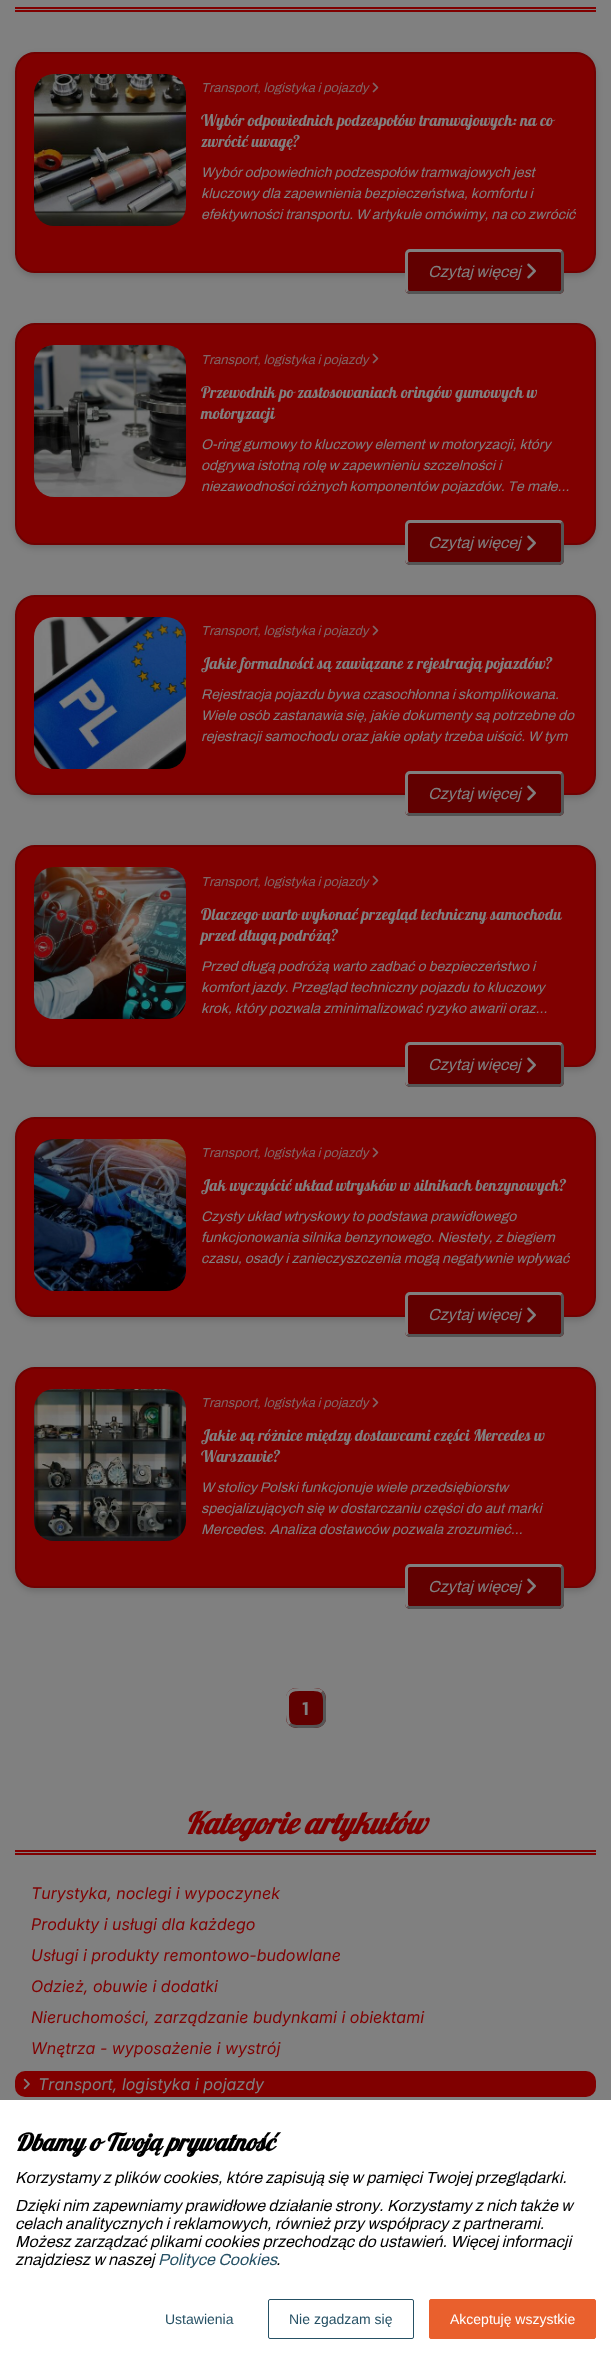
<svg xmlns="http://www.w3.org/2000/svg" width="611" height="2369">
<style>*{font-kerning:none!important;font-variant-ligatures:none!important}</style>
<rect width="100%" height="100%" fill="#808080"/>
<rect x="15" y="7" width="581" height="2" fill="#800000"/>
<rect x="15" y="10" width="581" height="2" fill="#800000"/>
<rect x="15" y="55" width="581" height="221" rx="20" fill="#00000029" filter="blur(3px)"/>
<rect x="16" y="53" width="579" height="219" rx="19" fill="#800000" stroke="#700101" stroke-width="2"/>
<image x="34" y="74" width="152" height="152" href="media/1.png"/>
<text x="201" y="92" style="font-family:Archivo;font-size:13px;font-weight:600;font-style:italic;fill:#806666">Transport, logistyka i pojazdy</text>
<image x="372" y="82" width="7" height="11" href="media/2.png"/>
<text x="201" y="126" style="font-family:Lobster;font-size:16px;fill:#808080">Wybór odpowiednich podzespołów tramwajowych: na co</text>
<text x="201" y="147" style="font-family:Lobster;font-size:16px;fill:#808080">zwrócić uwagę?</text>
<text x="201" y="177" style="font-family:Archivo;font-size:14px;font-weight:600;font-style:italic;fill:#808080">Wybór odpowiednich podzespołów tramwajowych jest</text>
<text x="201" y="198" style="font-family:Archivo;font-size:14px;font-weight:600;font-style:italic;fill:#808080">kluczowy dla zapewnienia bezpieczeństwa, komfortu i</text>
<text x="201" y="219" style="font-family:Archivo;font-size:14px;font-weight:600;font-style:italic;fill:#808080">efektywności transportu. W artykule omówimy, na co zwrócić</text>
<rect x="405" y="249" width="159" height="45" rx="5" fill="#610000"/>
<path d="M561.5 251.5c.5 .5 1 1.5 1 2.5v35c0 1-.5 2-1 2.5c-.5 .5-1.5 1-2.5 1h-149c-1 0-2-.5-2.5-1" fill="none" stroke="#555" stroke-width="3"/>
<path d="M407.5 291.5c-.5-.5-1-1.5-1-2.5v-35c0-1 .5-2 1-2.5c.5-.5 1.5-1 2.5-1h149c1 0 2 .5 2.5 1" fill="none" stroke="#808080" stroke-width="3"/>
<text x="428" y="277" style="font-family:Archivo;font-size:16px;font-weight:600;font-style:italic;fill:#808080">Czytaj więcej</text>
<image x="527" y="263" width="9" height="16" href="media/3.png"/>
<rect x="15" y="326" width="581" height="222" rx="20" fill="#00000029" filter="blur(3px)"/>
<rect x="16" y="324" width="579" height="220" rx="19" fill="#800000" stroke="#700101" stroke-width="2"/>
<image x="34" y="345" width="152" height="152" href="media/4.png"/>
<text x="201" y="364" style="font-family:Archivo;font-size:13px;font-weight:600;font-style:italic;fill:#806666">Transport, logistyka i pojazdy</text>
<image x="372" y="353" width="7" height="11" href="media/2.png"/>
<text x="201" y="398" style="font-family:Lobster;font-size:16px;fill:#808080">Przewodnik po zastosowaniach</text>
<text x="401" y="398" style="font-family:Lobster;font-size:16px;fill:#808080">oringów gumowych w</text>
<text x="201" y="419" style="font-family:Lobster;font-size:16px;fill:#808080">motoryzacji</text>
<text x="201" y="449" style="font-family:Archivo;font-size:14px;font-weight:600;font-style:italic;fill:#808080">O-ring gumowy to kluczowy element w motoryzacji, który</text>
<text x="201" y="470" style="font-family:Archivo;font-size:14px;font-weight:600;font-style:italic;fill:#808080">odgrywa istotną rolę w zapewnieniu szczelności i</text>
<text x="201" y="491" style="font-family:Archivo;font-size:14px;font-weight:600;font-style:italic;fill:#808080">niezawodności różnych komponentów pojazdów. Te</text>
<text x="527" y="491" style="font-family:Archivo;font-size:14px;font-weight:600;font-style:italic;fill:#808080">małe…</text>
<rect x="405" y="520" width="159" height="45" rx="5" fill="#610000"/>
<path d="M561.5 522.5c.5 .5 1 1.5 1 2.5v35c0 1-.5 2-1 2.5c-.5 .5-1.5 1-2.5 1h-149c-1 0-2-.5-2.5-1" fill="none" stroke="#555" stroke-width="3"/>
<path d="M407.5 562.5c-.5-.5-1-1.5-1-2.5v-35c0-1 .5-2 1-2.5c.5-.5 1.5-1 2.5-1h149c1 0 2 .5 2.5 1" fill="none" stroke="#808080" stroke-width="3"/>
<text x="428" y="548" style="font-family:Archivo;font-size:16px;font-weight:600;font-style:italic;fill:#808080">Czytaj więcej</text>
<image x="527" y="535" width="9" height="16" href="media/3.png"/>
<rect x="15" y="598" width="581" height="200" rx="20" fill="#00000029" filter="blur(3px)"/>
<rect x="16" y="596" width="579" height="198" rx="19" fill="#800000" stroke="#700101" stroke-width="2"/>
<image x="34" y="617" width="152" height="152" href="media/5.png"/>
<text x="201" y="635" style="font-family:Archivo;font-size:13px;font-weight:600;font-style:italic;fill:#806666">Transport, logistyka i pojazdy</text>
<image x="372" y="625" width="7" height="11" href="media/2.png"/>
<text x="201" y="669" style="font-family:Lobster;font-size:16px;fill:#808080">Jakie formalności są zawiązane z rejestracją pojazdów?</text>
<text x="201" y="699" style="font-family:Archivo;font-size:14px;font-weight:600;font-style:italic;fill:#808080">Rejestracja pojazdu bywa czasochłonna i skomplikowana.</text>
<text x="201" y="720" style="font-family:Archivo;font-size:14px;font-weight:600;font-style:italic;fill:#808080">Wiele osób zastanawia się, jakie dokumenty są potrzebne do</text>
<text x="201" y="741" style="font-family:Archivo;font-size:14px;font-weight:600;font-style:italic;fill:#808080">rejestracji samochodu oraz jakie opłaty trzeba uiścić. W tym</text>
<rect x="405" y="771" width="159" height="45" rx="5" fill="#610000"/>
<path d="M561.5 773.5c.5 .5 1 1.5 1 2.5v35c0 1-.5 2-1 2.5c-.5 .5-1.5 1-2.5 1h-149c-1 0-2-.5-2.5-1" fill="none" stroke="#555" stroke-width="3"/>
<path d="M407.5 813.5c-.5-.5-1-1.5-1-2.5v-35c0-1 .5-2 1-2.5c.5-.5 1.5-1 2.5-1h149c1 0 2 .5 2.5 1" fill="none" stroke="#808080" stroke-width="3"/>
<text x="428" y="799" style="font-family:Archivo;font-size:16px;font-weight:600;font-style:italic;fill:#808080">Czytaj więcej</text>
<image x="527" y="785" width="9" height="16" href="media/3.png"/>
<rect x="15" y="848" width="581" height="222" rx="20" fill="#00000029" filter="blur(3px)"/>
<rect x="16" y="846" width="579" height="220" rx="19" fill="#800000" stroke="#700101" stroke-width="2"/>
<image x="34" y="867" width="152" height="152" href="media/6.png"/>
<text x="201" y="886" style="font-family:Archivo;font-size:13px;font-weight:600;font-style:italic;fill:#806666">Transport, logistyka i pojazdy</text>
<image x="372" y="875" width="7" height="11" href="media/2.png"/>
<text x="201" y="920" style="font-family:Lobster;font-size:16px;fill:#808080">Dlaczego warto wykonać przegląd</text>
<text x="421" y="920" style="font-family:Lobster;font-size:16px;fill:#808080">techniczny samochodu</text>
<text x="201" y="941" style="font-family:Lobster;font-size:16px;fill:#808080">przed długą</text>
<text x="280" y="941" style="font-family:Lobster;font-size:16px;fill:#808080">podróżą?</text>
<text x="201" y="971" style="font-family:Archivo;font-size:14px;font-weight:600;font-style:italic;fill:#808080">Przed długą podróżą warto zadbać o bezpieczeństwo i</text>
<text x="201" y="992" style="font-family:Archivo;font-size:14px;font-weight:600;font-style:italic;fill:#808080">komfort jazdy. Przegląd techniczny pojazdu to kluczowy</text>
<text x="201" y="1013" style="font-family:Archivo;font-size:14px;font-weight:600;font-style:italic;fill:#808080">krok, który pozwala zminimalizować ryzyko awarii oraz…</text>
<rect x="405" y="1042" width="159" height="45" rx="5" fill="#610000"/>
<path d="M561.5 1044.5c.5 .5 1 1.5 1 2.5v35c0 1-.5 2-1 2.5c-.5 .5-1.5 1-2.5 1h-149c-1 0-2-.5-2.5-1" fill="none" stroke="#555" stroke-width="3"/>
<path d="M407.5 1084.5c-.5-.5-1-1.5-1-2.5v-35c0-1 .5-2 1-2.5c.5-.5 1.5-1 2.5-1h149c1 0 2 .5 2.5 1" fill="none" stroke="#808080" stroke-width="3"/>
<text x="428" y="1070" style="font-family:Archivo;font-size:16px;font-weight:600;font-style:italic;fill:#808080">Czytaj więcej</text>
<image x="527" y="1057" width="9" height="16" href="media/3.png"/>
<rect x="15" y="1120" width="581" height="200" rx="20" fill="#00000029" filter="blur(3px)"/>
<rect x="16" y="1118" width="579" height="198" rx="19" fill="#800000" stroke="#700101" stroke-width="2"/>
<image x="34" y="1139" width="152" height="152" href="media/7.png"/>
<text x="201" y="1157" style="font-family:Archivo;font-size:13px;font-weight:600;font-style:italic;fill:#806666">Transport, logistyka i pojazdy</text>
<image x="372" y="1147" width="7" height="11" href="media/2.png"/>
<text x="201" y="1191" style="font-family:Lobster;font-size:16px;fill:#808080">Jak wyczyścić układ</text>
<text x="336" y="1191" style="font-family:Lobster;font-size:16px;fill:#808080">wtrysków w silnikach benzynowych?</text>
<text x="201" y="1221" style="font-family:Archivo;font-size:14px;font-weight:600;font-style:italic;fill:#808080">Czysty układ wtryskowy to podstawa prawidłowego</text>
<text x="201" y="1242" style="font-family:Archivo;font-size:14px;font-weight:600;font-style:italic;fill:#808080">funkcjonowania silnika benzynowego. Niestety, z biegiem</text>
<text x="201" y="1263" style="font-family:Archivo;font-size:14px;font-weight:600;font-style:italic;fill:#808080">czasu, osady i zanieczyszczenia mogą negatywnie wpływać</text>
<rect x="405" y="1292" width="159" height="45" rx="5" fill="#610000"/>
<path d="M561.5 1294.5c.5 .5 1 1.5 1 2.5v35c0 1-.5 2-1 2.5c-.5 .5-1.5 1-2.5 1h-149c-1 0-2-.5-2.5-1" fill="none" stroke="#555" stroke-width="3"/>
<path d="M407.5 1334.5c-.5-.5-1-1.5-1-2.5v-35c0-1 .5-2 1-2.5c.5-.5 1.5-1 2.5-1h149c1 0 2 .5 2.5 1" fill="none" stroke="#808080" stroke-width="3"/>
<text x="428" y="1320" style="font-family:Archivo;font-size:16px;font-weight:600;font-style:italic;fill:#808080">Czytaj więcej</text>
<image x="527" y="1307" width="9" height="16" href="media/3.png"/>
<rect x="15" y="1370" width="581" height="221" rx="20" fill="#00000029" filter="blur(3px)"/>
<rect x="16" y="1368" width="579" height="219" rx="19" fill="#800000" stroke="#700101" stroke-width="2"/>
<image x="34" y="1389" width="152" height="152" href="media/8.png"/>
<text x="201" y="1407" style="font-family:Archivo;font-size:13px;font-weight:600;font-style:italic;fill:#806666">Transport, logistyka i pojazdy</text>
<image x="372" y="1397" width="7" height="11" href="media/2.png"/>
<text x="201" y="1441" style="font-family:Lobster;font-size:16px;fill:#808080">Jakie są różnice między dostawcami</text>
<text x="434" y="1441" style="font-family:Lobster;font-size:16px;fill:#808080">części Mercedes w</text>
<text x="201" y="1462" style="font-family:Lobster;font-size:16px;fill:#808080">Warszawie?</text>
<text x="201" y="1492" style="font-family:Archivo;font-size:14px;font-weight:600;font-style:italic;fill:#808080">W stolicy Polski funkcjonuje wiele przedsiębiorstw</text>
<text x="201" y="1513" style="font-family:Archivo;font-size:14px;font-weight:600;font-style:italic;fill:#808080">specjalizujących się w dostarczaniu części do aut marki</text>
<text x="201" y="1534" style="font-family:Archivo;font-size:14px;font-weight:600;font-style:italic;fill:#808080">Mercedes. Analiza dostawców pozwala zrozumieć…</text>
<rect x="405" y="1564" width="159" height="45" rx="5" fill="#610000"/>
<path d="M561.5 1566.5c.5 .5 1 1.5 1 2.5v35c0 1-.5 2-1 2.5c-.5 .5-1.5 1-2.5 1h-149c-1 0-2-.5-2.5-1" fill="none" stroke="#555" stroke-width="3"/>
<path d="M407.5 1606.5c-.5-.5-1-1.5-1-2.5v-35c0-1 .5-2 1-2.5c.5-.5 1.5-1 2.5-1h149c1 0 2 .5 2.5 1" fill="none" stroke="#808080" stroke-width="3"/>
<text x="428" y="1592" style="font-family:Archivo;font-size:16px;font-weight:600;font-style:italic;fill:#808080">Czytaj więcej</text>
<image x="527" y="1578" width="9" height="16" href="media/3.png"/>
<rect x="286" y="1688" width="40" height="40" rx="10" fill="#610000"/>
<path d="M322 1692c2.5 2.5 2.5 6 2.5 9.5v18c-1.5 6.5-6.5 7-12 7h-10c-4 0-9 1-12.5-2.5" fill="none" stroke="#555" stroke-width="3"/>
<path d="M290 1724c-2.5-2.5-2.5-6-2.5-9.5v-18c1.5-6.5 6.5-7 12-7h10c4 0 9-1 12.5 2.5" fill="none" stroke="#808080" stroke-width="3"/>
<text x="302" y="1715" style="font-family:Kanit;font-size:20px;font-weight:500;fill:#808080">1</text>
<rect x="15" y="1850" width="581" height="2" fill="#800000"/>
<rect x="15" y="1853" width="581" height="2" fill="#800000"/>
<text x="185" y="1834" style="font-family:Lobster;font-size:30px;font-weight:bold;font-style:italic;fill:#800000">Kategorie artykułów</text>
<text x="31" y="1899" style="font-family:Inter;font-size:16px;font-style:italic;fill:#800000">Turystyka, noclegi i wypoczynek</text>
<text x="31" y="1930" style="font-family:Inter;font-size:16px;font-style:italic;fill:#800000">Produkty i usługi dla każdego</text>
<text x="31" y="1961" style="font-family:Inter;font-size:16px;font-style:italic;fill:#800000">Usługi i produkty remontowo-budowlane</text>
<text x="31" y="1992" style="font-family:Inter;font-size:16px;font-style:italic;fill:#800000">Odzież, obuwie i dodatki</text>
<text x="31" y="2023" style="font-family:Inter;font-size:16px;font-style:italic;fill:#800000">Nieruchomości, zarządzanie budynkami i obiektami</text>
<text x="31" y="2054" style="font-family:Inter;font-size:16px;font-style:italic;fill:#800000">Wnętrza - wyposażenie i wystrój</text>
<rect x="15" y="2071" width="581" height="26" rx="10" fill="#800000"/>
<image x="23" y="2078" width="7" height="12" href="media/9.png"/>
<text x="38" y="2090" style="font-family:Inter;font-size:16px;font-style:italic;fill:#808080">Transport, logistyka i pojazdy</text>
<rect y="2100" width="611" height="269" fill="#fff"/>
<text x="15" y="2151" style="font-family:Lobster;font-size:24px;font-weight:bold;font-style:italic;fill:#000">Dbamy o Twoją prywatność</text>
<text x="15" y="2183" style="font-family:Archivo;font-size:16px;font-weight:600;font-style:italic;fill:#000">Korzystamy z plików cookies, które zapisują się w pamięci Twojej przeglądarki.</text>
<text x="15" y="2211" style="font-family:Archivo;font-size:16px;font-weight:600;font-style:italic;fill:#000">Dzięki nim zapewniamy prawidłowe działanie strony. Korzystamy z nich także w</text>
<text x="15" y="2229" style="font-family:Archivo;font-size:16px;font-weight:600;font-style:italic;fill:#000">celach analitycznych i reklamowych, również przy współpracy z partnerami.</text>
<text x="15" y="2247" style="font-family:Archivo;font-size:16px;font-weight:600;font-style:italic;fill:#000">Możesz zarządzać plikami cookies przechodząc do ustawień. Więcej informacji</text>
<text x="15" y="2265" style="font-family:Archivo;font-size:16px;font-weight:600;font-style:italic;fill:#000">znajdziesz w naszej</text>
<text x="158" y="2265" style="font-family:Archivo;font-size:16px;font-weight:600;font-style:italic;fill:#265165">Polityce Cookies</text>
<text x="276" y="2265" style="font-family:Archivo;font-size:16px;font-weight:600;font-style:italic;fill:#000">.</text>
<text x="165" y="2324" style="font-family:Liberation Sans;font-size:14px;fill:#265165">Ustawienia</text>
<rect x="268.5" y="2299.5" width="145" height="39" rx="1.5" fill="none" stroke="#265165"/>
<text x="289" y="2324" style="font-family:Liberation Sans;font-size:14px;fill:#265165">Nie zgadzam się</text>
<rect x="429.5" y="2299.5" width="166" height="39" rx="1.5" fill="#e9602d" stroke="#e9602d"/>
<text x="450" y="2324" style="font-family:Liberation Sans;font-size:14px;fill:#fff">Akceptuję wszystkie</text>
</svg>
